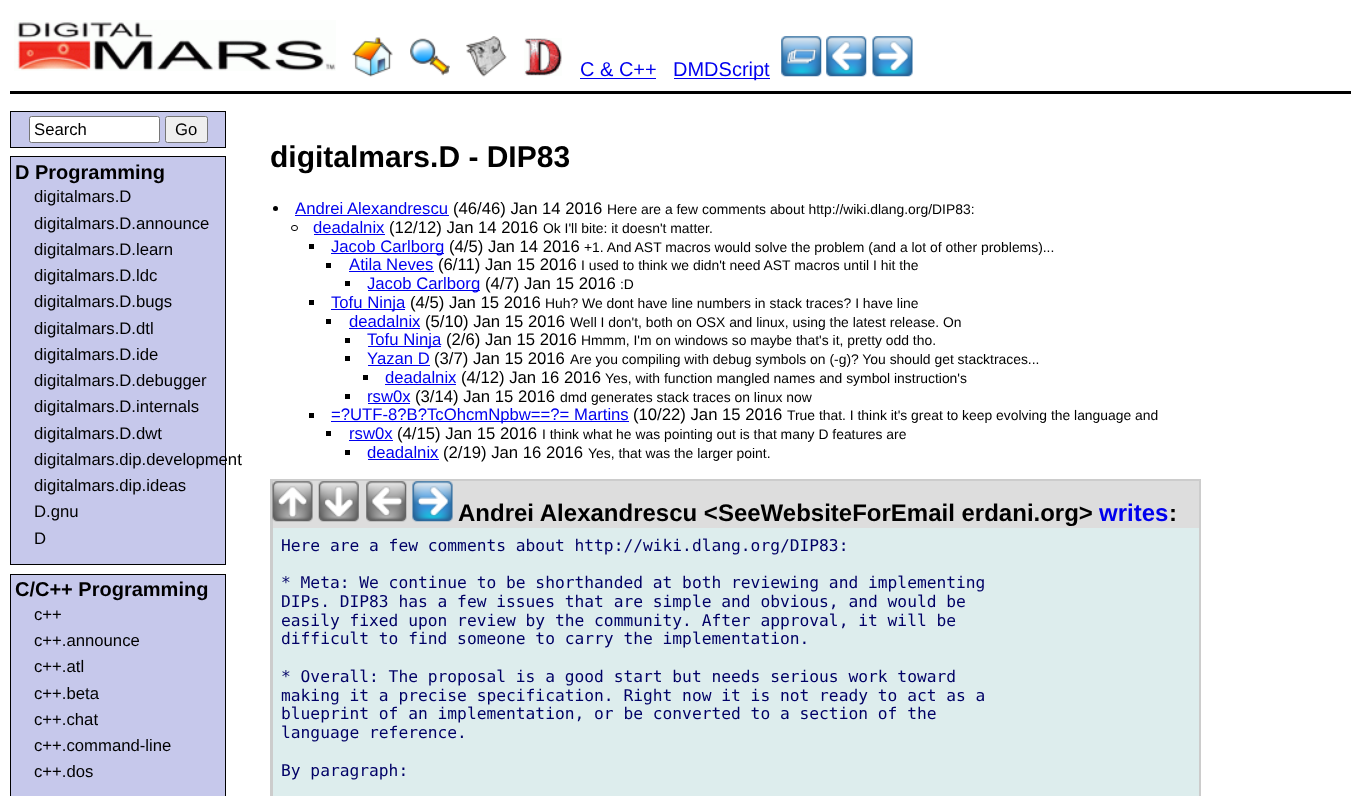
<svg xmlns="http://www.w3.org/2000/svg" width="1361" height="796">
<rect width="100%" height="100%" fill="#fff"/>
<rect x="10" y="91" width="1341" height="3" fill="#000"/>
<image x="14" y="20" width="322" height="51" href="media/1.png"/>
<image x="352" y="37" width="41" height="40" href="media/2.png"/>
<image x="410" y="38" width="40" height="38" href="media/3.png"/>
<image x="466" y="36" width="41" height="41" href="media/4.png"/>
<image x="524" y="38" width="38" height="38" href="media/5.png"/>
<text x="580" y="76" style="font-family:Liberation Sans;font-size:20px;fill:#00e">C &amp; C++</text>
<rect x="580" y="78" width="76" height="1" fill="#00e"/>
<rect x="674" y="78" width="96" height="1" fill="#00e"/>
<text x="673" y="76" style="font-family:Liberation Sans;font-size:20px;fill:#00e">DMDScript</text>
<image x="781" y="36" width="41" height="41" href="media/6.png"/>
<image x="826" y="36" width="41" height="41" href="media/7.png"/>
<image x="872" y="36" width="41" height="41" href="media/8.png"/>
<rect x="10.5" y="111.5" width="215" height="36" fill="#c6c8eb" stroke="#000"/>
<rect x="29.5" y="116.5" width="130" height="26" rx="2" fill="#fff" stroke="#767676"/>
<text x="34" y="135" style="font-family:Liberation Sans;font-size:16.7px;fill:#000">Search</text>
<rect x="165.5" y="116.5" width="42" height="26" rx="2" fill="#efefef" stroke="#767676"/>
<text x="175" y="135" style="font-family:Liberation Sans;font-size:16.7px;fill:#000">Go</text>
<rect x="10.5" y="156.5" width="215" height="408" fill="#c6c8eb" stroke="#000"/>
<text x="15" y="179" style="font-family:Liberation Sans;font-size:20px;font-weight:bold;fill:#000">D Programming</text>
<text x="34" y="202" style="font-family:Liberation Sans;font-size:16.7px;fill:#000">digitalmars.D</text>
<text x="34" y="229" style="font-family:Liberation Sans;font-size:16.7px;fill:#000">digitalmars.D.announce</text>
<text x="34" y="255" style="font-family:Liberation Sans;font-size:16.7px;fill:#000">digitalmars.D.learn</text>
<text x="34" y="281" style="font-family:Liberation Sans;font-size:16.7px;fill:#000">digitalmars.D.ldc</text>
<text x="34" y="307" style="font-family:Liberation Sans;font-size:16.7px;fill:#000">digitalmars.D.bugs</text>
<text x="34" y="334" style="font-family:Liberation Sans;font-size:16.7px;fill:#000">digitalmars.D.dtl</text>
<text x="34" y="360" style="font-family:Liberation Sans;font-size:16.7px;fill:#000">digitalmars.D.ide</text>
<text x="34" y="386" style="font-family:Liberation Sans;font-size:16.7px;fill:#000">digitalmars.D.debugger</text>
<text x="34" y="412" style="font-family:Liberation Sans;font-size:16.7px;fill:#000">digitalmars.D.internals</text>
<text x="34" y="439" style="font-family:Liberation Sans;font-size:16.7px;fill:#000">digitalmars.D.dwt</text>
<text x="34" y="465" style="font-family:Liberation Sans;font-size:16.7px;fill:#000">digitalmars.dip.development</text>
<text x="34" y="491" style="font-family:Liberation Sans;font-size:16.7px;fill:#000">digitalmars.dip.ideas</text>
<text x="34" y="517" style="font-family:Liberation Sans;font-size:16.7px;fill:#000">D.gnu</text>
<text x="34" y="544" style="font-family:Liberation Sans;font-size:16.7px;fill:#000">D</text>
<rect x="10.5" y="574.5" width="215" height="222" fill="#c6c8eb" stroke="#000"/>
<text x="15" y="596" style="font-family:Liberation Sans;font-size:20px;font-weight:bold;fill:#000">C/C++ Programming</text>
<text x="34" y="620" style="font-family:Liberation Sans;font-size:16.7px;fill:#000">c++</text>
<text x="34" y="646" style="font-family:Liberation Sans;font-size:16.7px;fill:#000">c++.announce</text>
<text x="34" y="672" style="font-family:Liberation Sans;font-size:16.7px;fill:#000">c++.atl</text>
<text x="34" y="699" style="font-family:Liberation Sans;font-size:16.7px;fill:#000">c++.beta</text>
<text x="34" y="725" style="font-family:Liberation Sans;font-size:16.7px;fill:#000">c++.chat</text>
<text x="34" y="751" style="font-family:Liberation Sans;font-size:16.7px;fill:#000">c++.command-line</text>
<text x="34" y="777" style="font-family:Liberation Sans;font-size:16.7px;fill:#000">c++.dos</text>
<text x="270" y="167" style="font-family:Liberation Sans;font-size:30px;font-weight:bold;fill:#000">digitalmars.D - DIP83</text>
<circle cx="275.5" cy="208.5" r="2.5" fill="#000"/>
<text x="295" y="214" style="font-family:Liberation Sans;font-size:16.7px;fill:#00e">Andrei Alexandrescu</text>
<rect x="295" y="215" width="154" height="1" fill="#00e"/>
<text x="453" y="214" style="font-family:Liberation Sans;font-size:16.7px;fill:#000">(46/46) Jan 14 2016</text>
<text x="607" y="214" style="font-family:Liberation Sans;font-size:13.9px;fill:#000">Here are a few comments about http://wiki.dlang.org/DIP83:</text>
<rect x="291.5" y="225.5" width="6" height="5" rx="2.5" fill="none" stroke="#000"/>
<text x="313" y="233" style="font-family:Liberation Sans;font-size:16.7px;fill:#00e">deadalnix</text>
<rect x="314" y="234" width="71" height="1" fill="#00e"/>
<text x="389" y="233" style="font-family:Liberation Sans;font-size:16.7px;fill:#000">(12/12) Jan 14 2016</text>
<text x="543" y="233" style="font-family:Liberation Sans;font-size:13.9px;fill:#000">Ok I'll bite: it doesn't matter.</text>
<rect x="309" y="244" width="5" height="5" fill="#000"/>
<rect x="331" y="253" width="113" height="1" fill="#00e"/>
<text x="331" y="252" style="font-family:Liberation Sans;font-size:16.7px;fill:#00e">Jacob Carlborg</text>
<text x="449" y="252" style="font-family:Liberation Sans;font-size:16.7px;fill:#000">(4/5) Jan 14 2016</text>
<text x="584" y="252" style="font-family:Liberation Sans;font-size:13.9px;fill:#000">+1. And AST macros would solve the problem (and a lot of other problems)...</text>
<rect x="326" y="263" width="5" height="5" fill="#000"/>
<text x="349" y="270" style="font-family:Liberation Sans;font-size:16.7px;fill:#00e">Atila Neves</text>
<rect x="349" y="271" width="85" height="1" fill="#00e"/>
<text x="438" y="270" style="font-family:Liberation Sans;font-size:16.7px;fill:#000">(6/11) Jan 15 2016</text>
<text x="581" y="270" style="font-family:Liberation Sans;font-size:13.9px;fill:#000">I used to think we didn't need AST macros until I hit the</text>
<rect x="345" y="281" width="5" height="5" fill="#000"/>
<rect x="368" y="290" width="112" height="1" fill="#00e"/>
<text x="367" y="289" style="font-family:Liberation Sans;font-size:16.7px;fill:#00e">Jacob Carlborg</text>
<text x="485" y="289" style="font-family:Liberation Sans;font-size:16.7px;fill:#000">(4/7) Jan 15 2016</text>
<text x="620" y="289" style="font-family:Liberation Sans;font-size:13.9px;fill:#000">:D</text>
<rect x="309" y="300" width="5" height="5" fill="#000"/>
<rect x="331" y="309" width="74" height="1" fill="#00e"/>
<text x="331" y="308" style="font-family:Liberation Sans;font-size:16.7px;fill:#00e">Tofu Ninja</text>
<text x="410" y="308" style="font-family:Liberation Sans;font-size:16.7px;fill:#000">(4/5) Jan 15 2016</text>
<text x="545" y="308" style="font-family:Liberation Sans;font-size:13.9px;fill:#000">Huh? We dont have line numbers in stack traces? I have line</text>
<rect x="326" y="319" width="5" height="5" fill="#000"/>
<text x="349" y="327" style="font-family:Liberation Sans;font-size:16.7px;fill:#00e">deadalnix</text>
<rect x="349" y="328" width="71" height="1" fill="#00e"/>
<text x="425" y="327" style="font-family:Liberation Sans;font-size:16.7px;fill:#000">(5/10) Jan 15 2016</text>
<text x="570" y="327" style="font-family:Liberation Sans;font-size:13.9px;fill:#000">Well I don't, both on OSX and linux, using the latest release. On</text>
<rect x="345" y="338" width="5" height="5" fill="#000"/>
<rect x="368" y="346" width="73" height="1" fill="#00e"/>
<text x="367" y="345" style="font-family:Liberation Sans;font-size:16.7px;fill:#00e">Tofu Ninja</text>
<text x="446" y="345" style="font-family:Liberation Sans;font-size:16.7px;fill:#000">(2/6) Jan 15 2016</text>
<text x="581" y="345" style="font-family:Liberation Sans;font-size:13.9px;fill:#000">Hmmm, I'm on windows so maybe that's it, pretty odd tho.</text>
<rect x="345" y="356" width="5" height="5" fill="#000"/>
<text x="367" y="364" style="font-family:Liberation Sans;font-size:16.7px;fill:#00e">Yazan D</text>
<rect x="368" y="365" width="62" height="1" fill="#00e"/>
<text x="434" y="364" style="font-family:Liberation Sans;font-size:16.7px;fill:#000">(3/7) Jan 15 2016</text>
<text x="570" y="364" style="font-family:Liberation Sans;font-size:13.9px;fill:#000">Are you compiling with debug symbols on (-g)? You should get stacktraces...</text>
<rect x="363" y="375" width="5" height="5" fill="#000"/>
<text x="385" y="383" style="font-family:Liberation Sans;font-size:16.7px;fill:#00e">deadalnix</text>
<rect x="385" y="384" width="71" height="1" fill="#00e"/>
<text x="461" y="383" style="font-family:Liberation Sans;font-size:16.7px;fill:#000">(4/12) Jan 16 2016</text>
<text x="605" y="383" style="font-family:Liberation Sans;font-size:13.9px;fill:#000">Yes, with function mangled names and symbol instruction's</text>
<rect x="345" y="394" width="5" height="5" fill="#000"/>
<text x="367" y="402" style="font-family:Liberation Sans;font-size:16.7px;fill:#00e">rsw0x</text>
<rect x="368" y="403" width="42" height="1" fill="#00e"/>
<text x="415" y="402" style="font-family:Liberation Sans;font-size:16.7px;fill:#000">(3/14) Jan 15 2016</text>
<text x="560" y="402" style="font-family:Liberation Sans;font-size:13.9px;fill:#000">dmd generates stack traces on linux now</text>
<rect x="309" y="413" width="5" height="5" fill="#000"/>
<rect x="331" y="421" width="298" height="1" fill="#00e"/>
<text x="331" y="420" style="font-family:Liberation Sans;font-size:16.7px;fill:#00e">=?UTF-8?B?TcOhcmNpbw==?= Martins</text>
<text x="633" y="420" style="font-family:Liberation Sans;font-size:16.7px;fill:#000">(10/22) Jan 15 2016</text>
<text x="787" y="420" style="font-family:Liberation Sans;font-size:13.9px;fill:#000">True that. I think it's great to keep evolving the language and</text>
<rect x="326" y="431" width="5" height="5" fill="#000"/>
<text x="349" y="439" style="font-family:Liberation Sans;font-size:16.7px;fill:#00e">rsw0x</text>
<rect x="349" y="440" width="44" height="1" fill="#00e"/>
<text x="397" y="439" style="font-family:Liberation Sans;font-size:16.7px;fill:#000">(4/15) Jan 15 2016</text>
<text x="542" y="439" style="font-family:Liberation Sans;font-size:13.9px;fill:#000">I think what he was pointing out is that many D features are</text>
<rect x="345" y="450" width="5" height="5" fill="#000"/>
<text x="367" y="458" style="font-family:Liberation Sans;font-size:16.7px;fill:#00e">deadalnix</text>
<rect x="368" y="459" width="71" height="1" fill="#00e"/>
<text x="443" y="458" style="font-family:Liberation Sans;font-size:16.7px;fill:#000">(2/19) Jan 16 2016</text>
<text x="588" y="458" style="font-family:Liberation Sans;font-size:13.9px;fill:#000">Yes, that was the larger point.</text>
<rect x="271.5" y="480.5" width="928" height="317" fill="none" stroke="#ccc" stroke-width="3"/>
<rect x="273" y="481" width="926" height="47" fill="#ddd"/>
<image x="272" y="481" width="41" height="41" href="media/9.png"/>
<image x="318" y="481" width="41" height="41" href="media/10.png"/>
<image x="366" y="481" width="41" height="41" href="media/11.png"/>
<image x="412" y="481" width="41" height="41" href="media/12.png"/>
<text x="458" y="521" style="font-family:Liberation Sans;font-size:24px;font-weight:bold;fill:#000">Andrei Alexandrescu &lt;SeeWebsiteForEmail erdani.org&gt;</text>
<text x="1099" y="521" style="font-family:Liberation Sans;font-size:24px;font-weight:bold;fill:#00e">writes</text>
<text x="1169" y="521" style="font-family:Liberation Sans;font-size:24px;font-weight:bold;fill:#000">:</text>
<rect x="273" y="528" width="926" height="268" fill="#ddeded"/>
<text x="281" y="551" style="font-family:DejaVu Sans Mono;font-size:16.25px;fill:#006">Here are a few comments about http://wiki.dlang.org/DIP83:</text>
<text x="281" y="588" style="font-family:DejaVu Sans Mono;font-size:16.25px;fill:#006">* Meta: We continue to be shorthanded at both reviewing and implementing</text>
<text x="281" y="607" style="font-family:DejaVu Sans Mono;font-size:16.25px;fill:#006">DIPs. DIP83 has a few issues that are simple and obvious, and would be</text>
<text x="281" y="626" style="font-family:DejaVu Sans Mono;font-size:16.25px;fill:#006">easily fixed upon review by the community. After approval, it will be</text>
<text x="281" y="644" style="font-family:DejaVu Sans Mono;font-size:16.25px;fill:#006">difficult to find someone to carry the implementation.</text>
<text x="281" y="682" style="font-family:DejaVu Sans Mono;font-size:16.25px;fill:#006">* Overall: The proposal is a good start but needs serious work toward</text>
<text x="281" y="701" style="font-family:DejaVu Sans Mono;font-size:16.25px;fill:#006">making it a precise specification. Right now it is not ready to act as a</text>
<text x="281" y="719" style="font-family:DejaVu Sans Mono;font-size:16.25px;fill:#006">blueprint of an implementation, or be converted to a section of the</text>
<text x="281" y="738" style="font-family:DejaVu Sans Mono;font-size:16.25px;fill:#006">language reference.</text>
<text x="281" y="776" style="font-family:DejaVu Sans Mono;font-size:16.25px;fill:#006">By paragraph:</text>
</svg>
